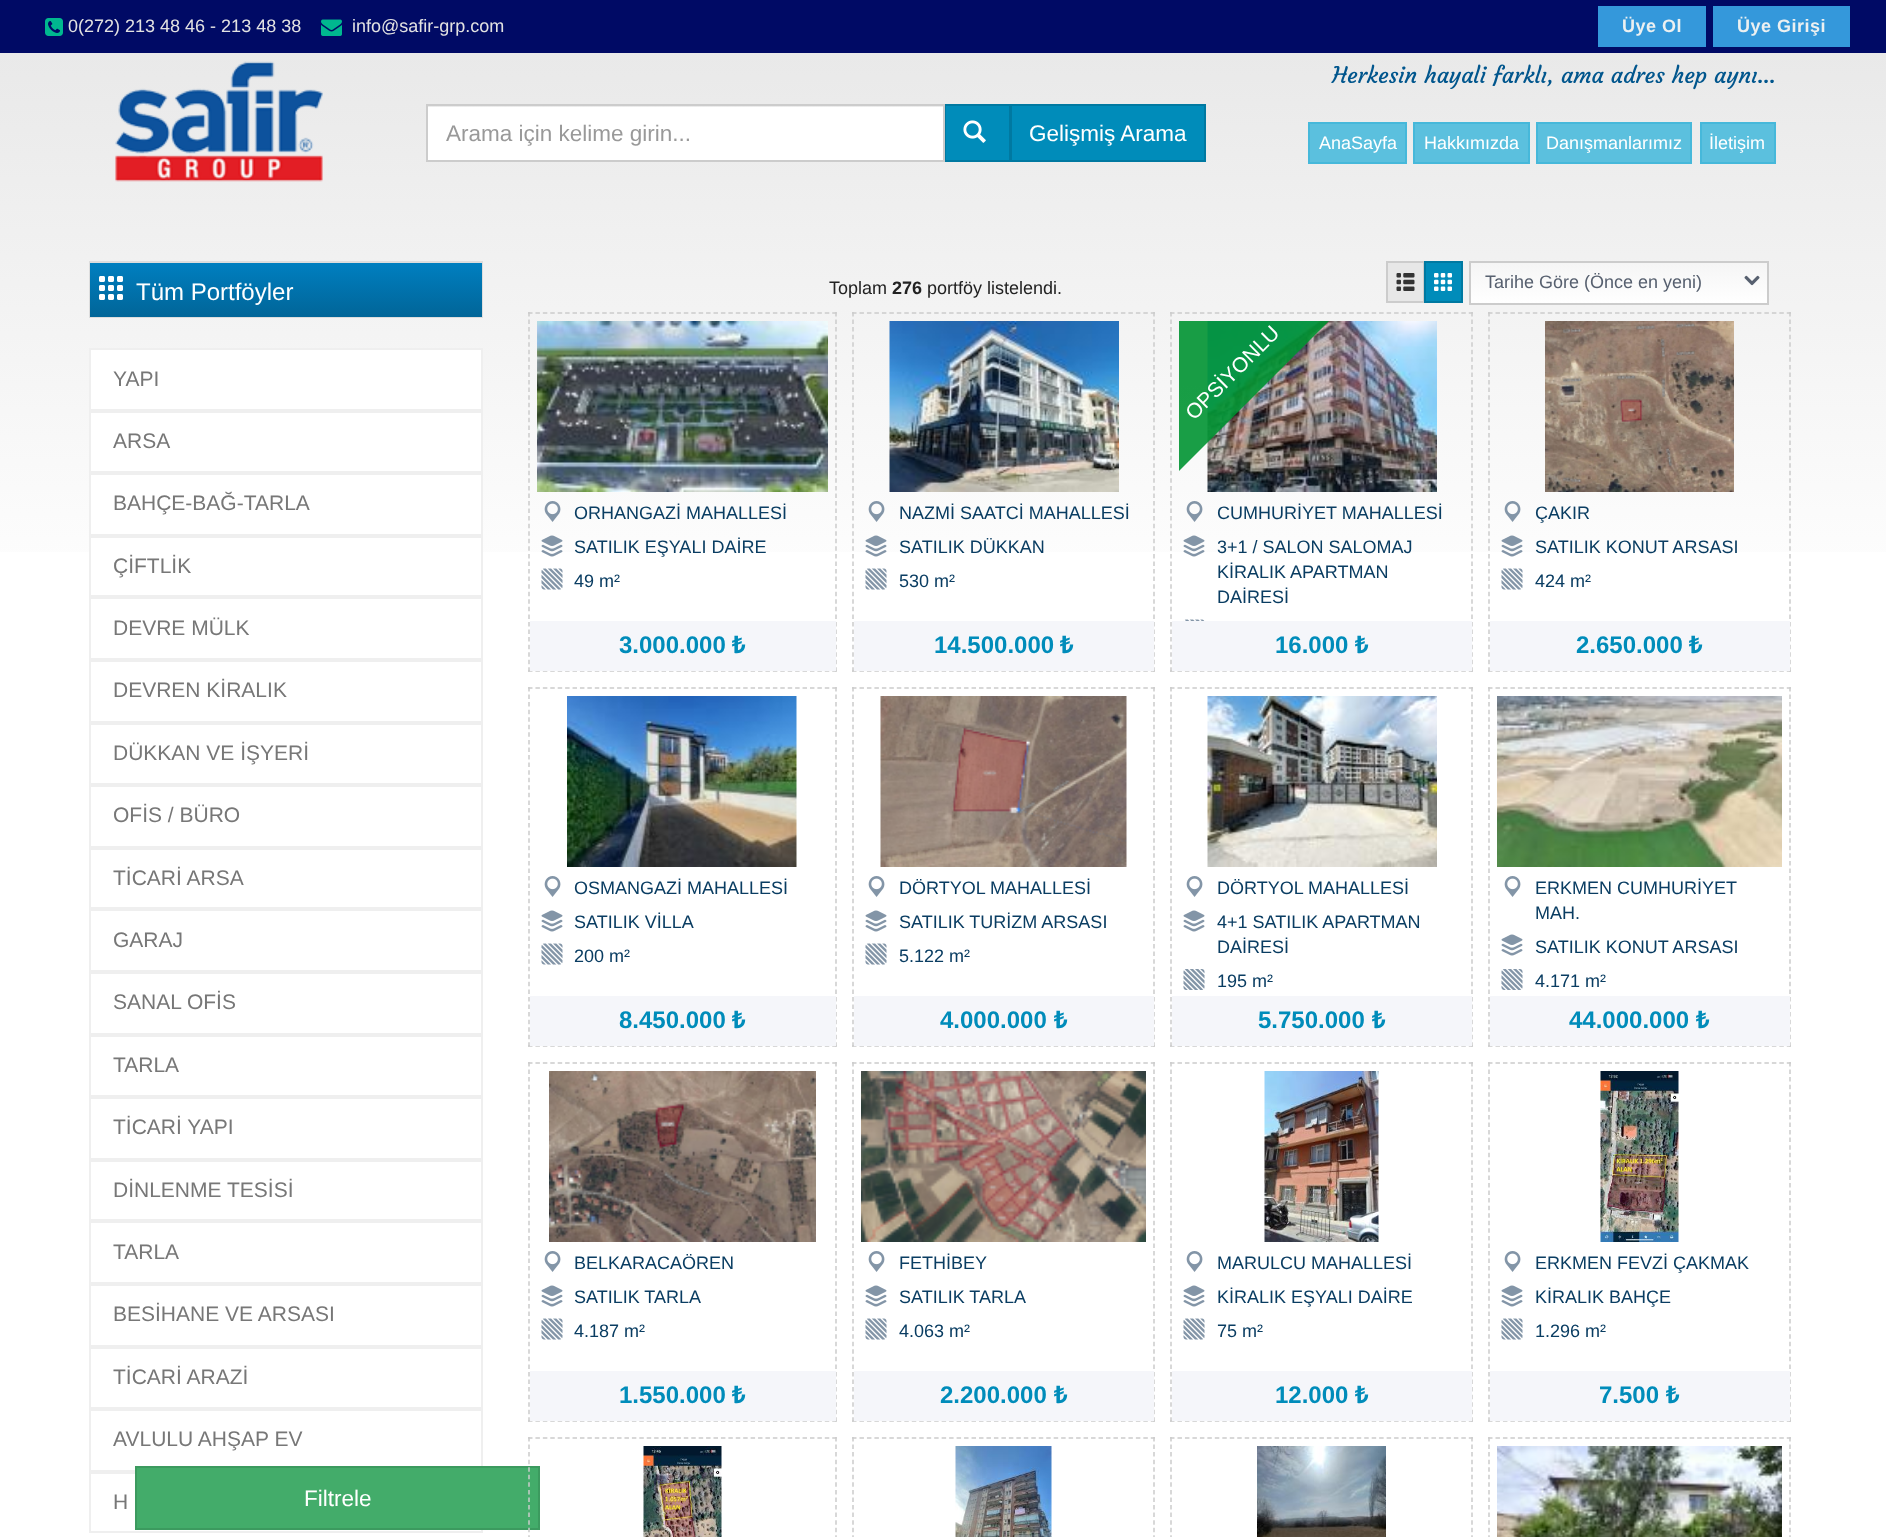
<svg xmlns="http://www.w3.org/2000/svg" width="1886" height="1537">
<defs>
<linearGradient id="g1" gradientUnits="userSpaceOnUse" x1="943" y1="0" x2="944" y2="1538"><stop offset="0" stop-color="#e7e7e7"/><stop offset="0.4" stop-color="#fff"/></linearGradient>
<linearGradient id="g2" gradientUnits="userSpaceOnUse" x1="286" y1="263" x2="286" y2="317"><stop offset="0" stop-color="#007fc0"/><stop offset="1" stop-color="#016598"/></linearGradient>
<linearGradient id="g3" gradientUnits="userSpaceOnUse" x1="1619" y1="263" x2="1619" y2="303"><stop offset="0" stop-color="#f5f5f5"/><stop offset="1" stop-color="#fff"/></linearGradient>
</defs>
<rect width="100%" height="100%" fill="#fff"/>
<rect y="53" width="1886" height="499" fill="url(#g1)"/>
<rect width="1886" height="53" fill="#000a65"/>
<image x="45" y="18" width="18" height="18" href="media/1.png"/>
<text x="68" y="32" style="font-family:Liberation Sans;font-size:18px;fill:#e2e2e2">0(272) 213 48 46 - 213 48 38</text>
<image x="321" y="19" width="21" height="17" href="media/2.png"/>
<text x="352" y="32" style="font-family:Liberation Sans;font-size:18px;fill:#e2e2e2">info@safir-grp.com</text>
<rect x="1598" y="6" width="108" height="41" fill="#3498db"/>
<text x="1622" y="32" style="font-family:Liberation Sans;font-size:18px;font-weight:bold;letter-spacing:0.5px;fill:#ecf0f1">Üye Ol</text>
<rect x="1713" y="6" width="137" height="41" fill="#3498db"/>
<text x="1737" y="32" style="font-family:Liberation Sans;font-size:18px;font-weight:bold;letter-spacing:0.5px;fill:#ecf0f1">Üye Girişi</text>
<image x="115" y="61" width="208" height="121" href="media/3.png"/>
<rect x="428" y="107" width="515" height="53" fill="#fff"/>
<rect x="945" y="105" width="65" height="56" fill="#008cba" stroke="#0079a1" stroke-width="2"/>
<rect x="427" y="105" width="517" height="56" fill="none" stroke="#ccc" stroke-width="2"/>
<text x="446" y="141" style="font-family:Liberation Sans;font-size:22.5px;fill:#999">Arama için kelime girin...</text>
<image x="963" y="120" width="23" height="23" href="media/4.png"/>
<rect x="1011" y="105" width="194" height="56" fill="#008cba" stroke="#0079a1" stroke-width="2"/>
<text x="1029" y="141" style="font-family:Liberation Sans;font-size:22.5px;fill:#fff">Gelişmiş Arama</text>
<text x="1332" y="83" style="font-family:Courgette;font-size:22.5px;fill:#01568d">Herkesin hayali farklı, ama adres hep aynı...</text>
<rect x="1309" y="123" width="97" height="40" fill="#5bc0de" stroke="#46b8da" stroke-width="2"/>
<text x="1319" y="149" style="font-family:Liberation Sans;font-size:18px;fill:#fff">AnaSayfa</text>
<rect x="1414" y="123" width="115" height="40" fill="#5bc0de" stroke="#46b8da" stroke-width="2"/>
<text x="1424" y="149" style="font-family:Liberation Sans;font-size:18px;fill:#fff">Hakkımızda</text>
<rect x="1537" y="123" width="154" height="40" fill="#5bc0de" stroke="#46b8da" stroke-width="2"/>
<text x="1546" y="149" style="font-family:Liberation Sans;font-size:18px;fill:#fff">Danışmanlarımız</text>
<rect x="1701" y="123" width="74" height="40" fill="#5bc0de" stroke="#46b8da" stroke-width="2"/>
<text x="1709" y="149" style="font-family:Liberation Sans;font-size:18px;fill:#fff">İletişim</text>
<rect x="90" y="262" width="392" height="55" fill="none" stroke="#ddd" stroke-width="2"/>
<rect x="90" y="263" width="392" height="54" fill="url(#g2)"/>
<image x="99" y="276" width="24" height="24" href="media/5.png"/>
<text x="136" y="300" style="font-family:Liberation Sans;font-size:24px;fill:#fff">Tüm Portföyler</text>
<rect x="90" y="349" width="392" height="61" fill="#fff" stroke="#efefef" stroke-width="2"/>
<text x="113" y="386" style="font-family:Liberation Sans;font-size:21px;fill:#777">YAPI</text>
<rect x="90" y="412" width="392" height="60" fill="#fff" stroke="#efefef" stroke-width="2"/>
<text x="113" y="448" style="font-family:Liberation Sans;font-size:21px;fill:#777">ARSA</text>
<rect x="90" y="474" width="392" height="61" fill="#fff" stroke="#efefef" stroke-width="2"/>
<text x="113" y="510" style="font-family:Liberation Sans;font-size:21px;fill:#777">BAHÇE-BAĞ-TARLA</text>
<rect x="91" y="538" width="390" height="14" fill="#fff"/>
<rect x="90" y="537" width="392" height="59" fill="none" stroke="#efefef" stroke-width="2"/>
<text x="113" y="573" style="font-family:Liberation Sans;font-size:21px;fill:#777">ÇİFTLİK</text>
<rect x="90" y="598" width="392" height="61" fill="none" stroke="#efefef" stroke-width="2"/>
<text x="113" y="635" style="font-family:Liberation Sans;font-size:21px;fill:#777">DEVRE MÜLK</text>
<rect x="90" y="661" width="392" height="61" fill="none" stroke="#efefef" stroke-width="2"/>
<text x="113" y="697" style="font-family:Liberation Sans;font-size:21px;fill:#777">DEVREN KİRALIK</text>
<rect x="90" y="724" width="392" height="60" fill="none" stroke="#efefef" stroke-width="2"/>
<text x="113" y="760" style="font-family:Liberation Sans;font-size:21px;fill:#777">DÜKKAN VE İŞYERİ</text>
<rect x="90" y="786" width="392" height="61" fill="none" stroke="#efefef" stroke-width="2"/>
<text x="113" y="822" style="font-family:Liberation Sans;font-size:21px;fill:#777">OFİS / BÜRO</text>
<rect x="90" y="849" width="392" height="59" fill="none" stroke="#efefef" stroke-width="2"/>
<text x="113" y="885" style="font-family:Liberation Sans;font-size:21px;fill:#777">TİCARİ ARSA</text>
<rect x="90" y="910" width="392" height="61" fill="none" stroke="#efefef" stroke-width="2"/>
<text x="113" y="947" style="font-family:Liberation Sans;font-size:21px;fill:#777">GARAJ</text>
<rect x="90" y="973" width="392" height="61" fill="none" stroke="#efefef" stroke-width="2"/>
<text x="113" y="1009" style="font-family:Liberation Sans;font-size:21px;fill:#777">SANAL OFİS</text>
<rect x="90" y="1036" width="392" height="60" fill="none" stroke="#efefef" stroke-width="2"/>
<text x="113" y="1072" style="font-family:Liberation Sans;font-size:21px;fill:#777">TARLA</text>
<rect x="90" y="1098" width="392" height="61" fill="none" stroke="#efefef" stroke-width="2"/>
<text x="113" y="1134" style="font-family:Liberation Sans;font-size:21px;fill:#777">TİCARİ YAPI</text>
<rect x="90" y="1161" width="392" height="59" fill="none" stroke="#efefef" stroke-width="2"/>
<text x="113" y="1197" style="font-family:Liberation Sans;font-size:21px;fill:#777">DİNLENME TESİSİ</text>
<rect x="90" y="1222" width="392" height="61" fill="none" stroke="#efefef" stroke-width="2"/>
<text x="113" y="1259" style="font-family:Liberation Sans;font-size:21px;fill:#777">TARLA</text>
<rect x="90" y="1285" width="392" height="61" fill="none" stroke="#efefef" stroke-width="2"/>
<text x="113" y="1321" style="font-family:Liberation Sans;font-size:21px;fill:#777">BESİHANE VE ARSASI</text>
<rect x="90" y="1348" width="392" height="60" fill="none" stroke="#efefef" stroke-width="2"/>
<text x="113" y="1384" style="font-family:Liberation Sans;font-size:21px;fill:#777">TİCARİ ARAZİ</text>
<rect x="90" y="1410" width="392" height="61" fill="none" stroke="#efefef" stroke-width="2"/>
<text x="113" y="1446" style="font-family:Liberation Sans;font-size:21px;fill:#777">AVLULU AHŞAP EV</text>
<rect x="90" y="1473" width="392" height="59" fill="none" stroke="#efefef" stroke-width="2"/>
<text x="113" y="1509" style="font-family:Liberation Sans;font-size:21px;fill:#777">H</text>
<rect x="136" y="1467" width="403" height="62" fill="#43ac6a" stroke="#3c9a5f" stroke-width="2"/>
<text x="304" y="1506" style="font-family:Liberation Sans;font-size:22.5px;fill:#fff">Filtrele</text>
<text x="829" y="294" style="font-family:Liberation Sans;font-size:18px;fill:#222">Toplam</text>
<text x="892" y="294" style="font-family:Liberation Sans;font-size:18px;font-weight:bold;fill:#222">276</text>
<text x="927" y="294" style="font-family:Liberation Sans;font-size:18px;fill:#222">portföy listelendi.</text>
<rect x="1387" y="262" width="37" height="40" fill="#e7e7e7" stroke="#ccc" stroke-width="2"/>
<image x="1396" y="273" width="19" height="18" href="media/6.png"/>
<rect x="1425" y="262" width="37" height="40" fill="#008cba" stroke="#0079a1" stroke-width="2"/>
<image x="1434" y="273" width="18" height="18" href="media/7.png"/>
<rect x="1471" y="263" width="296" height="40" fill="url(#g3)"/>
<rect x="1470" y="262" width="298" height="42" fill="none" stroke="#ccc" stroke-width="2"/>
<text x="1485" y="288" style="font-family:Liberation Sans;font-size:18px;fill:#57606f">Tarihe Göre (Önce en yeni)</text>
<image x="1744" y="275" width="16" height="11" href="media/8.png"/>
<path d="M528 313h309" fill="none" stroke="#ccc" stroke-width="1.5" stroke-dasharray="4.5 2.92"/>
<path d="M836 312v360" fill="none" stroke="#ccc" stroke-width="1.5" stroke-dasharray="4.5 3.06"/>
<path d="M528 671h309" fill="none" stroke="#ccc" stroke-width="1.5" stroke-dasharray="4.5 2.92"/>
<path d="M529 312v360" fill="none" stroke="#ccc" stroke-width="1.5" stroke-dasharray="4.5 3.06"/>
<image x="537" y="321" width="291" height="171" href="media/9.png"/>
<image x="544" y="501" width="17" height="21" href="media/10.png"/>
<text x="574" y="519" style="font-family:Liberation Sans;font-size:18px;fill:#0a3d62">ORHANGAZİ MAHALLESİ</text>
<image x="541" y="535" width="22" height="22" href="media/11.png"/>
<text x="574" y="553" style="font-family:Liberation Sans;font-size:18px;fill:#0a3d62">SATILIK EŞYALI DAİRE</text>
<image x="541" y="568" width="22" height="22" href="media/12.png"/>
<text x="574" y="587" style="font-family:Liberation Sans;font-size:18px;fill:#0a3d62">49 m²</text>
<rect x="530" y="621" width="306" height="50" fill="#f5f6fa"/>
<text x="619" y="653" style="font-family:Liberation Sans;font-size:24px;font-weight:bold;fill:#008cba">3.000.000</text>
<text x="732" y="653" style="font-family:Noto Sans;font-size:24px;font-weight:bold;fill:#008cba">₺</text>
<path d="M852 313h303" fill="none" stroke="#ccc" stroke-width="1.5" stroke-dasharray="4.5 2.97"/>
<path d="M1154 312v360" fill="none" stroke="#ccc" stroke-width="1.5" stroke-dasharray="4.5 3.06"/>
<path d="M852 671h303" fill="none" stroke="#ccc" stroke-width="1.5" stroke-dasharray="4.5 2.97"/>
<path d="M853 312v360" fill="none" stroke="#ccc" stroke-width="1.5" stroke-dasharray="4.5 3.06"/>
<image x="889" y="321" width="230" height="171" href="media/13.png"/>
<image x="868" y="501" width="17" height="21" href="media/10.png"/>
<text x="899" y="519" style="font-family:Liberation Sans;font-size:18px;fill:#0a3d62">NAZMİ SAATCİ MAHALLESİ</text>
<image x="865" y="535" width="22" height="22" href="media/11.png"/>
<text x="899" y="553" style="font-family:Liberation Sans;font-size:18px;fill:#0a3d62">SATILIK DÜKKAN</text>
<image x="865" y="568" width="22" height="22" href="media/12.png"/>
<text x="899" y="587" style="font-family:Liberation Sans;font-size:18px;fill:#0a3d62">530 m²</text>
<rect x="854" y="621" width="300" height="50" fill="#f5f6fa"/>
<text x="934" y="653" style="font-family:Liberation Sans;font-size:24px;font-weight:bold;fill:#008cba">14.500.000</text>
<text x="1060" y="653" style="font-family:Noto Sans;font-size:24px;font-weight:bold;fill:#008cba">₺</text>
<path d="M1170 313h303" fill="none" stroke="#ccc" stroke-width="1.5" stroke-dasharray="4.5 2.97"/>
<path d="M1472 312v360" fill="none" stroke="#ccc" stroke-width="1.5" stroke-dasharray="4.5 3.06"/>
<path d="M1170 671h303" fill="none" stroke="#ccc" stroke-width="1.5" stroke-dasharray="4.5 2.97"/>
<path d="M1171 312v360" fill="none" stroke="#ccc" stroke-width="1.5" stroke-dasharray="4.5 3.06"/>
<image x="1207" y="321" width="230" height="171" href="media/14.png"/>
<path d="M1179 471v-150h150z" fill="#009432e6"/>
<text x="1194" y="421" transform="rotate(-45 1194 421)" style="font-family:Liberation Sans;font-size:21px;fill:#fff">OPSİYONLU</text>
<image x="1186" y="501" width="17" height="21" href="media/10.png"/>
<text x="1217" y="519" style="font-family:Liberation Sans;font-size:18px;fill:#0a3d62">CUMHURİYET MAHALLESİ</text>
<image x="1183" y="535" width="22" height="22" href="media/11.png"/>
<text x="1217" y="553" style="font-family:Liberation Sans;font-size:18px;fill:#0a3d62">3+1 / SALON SALOMAJ</text>
<text x="1217" y="578" style="font-family:Liberation Sans;font-size:18px;fill:#0a3d62">KİRALIK APARTMAN</text>
<text x="1217" y="603" style="font-family:Liberation Sans;font-size:18px;fill:#0a3d62">DAİRESİ</text>
<image x="1183" y="619" width="22" height="2" href="media/15.png"/>
<rect x="1172" y="621" width="300" height="50" fill="#f5f6fa"/>
<text x="1275" y="653" style="font-family:Liberation Sans;font-size:24px;font-weight:bold;fill:#008cba">16.000</text>
<text x="1355" y="653" style="font-family:Noto Sans;font-size:24px;font-weight:bold;fill:#008cba">₺</text>
<path d="M1488 313h303" fill="none" stroke="#ccc" stroke-width="1.5" stroke-dasharray="4.5 2.97"/>
<path d="M1790 312v360" fill="none" stroke="#ccc" stroke-width="1.5" stroke-dasharray="4.5 3.06"/>
<path d="M1488 671h303" fill="none" stroke="#ccc" stroke-width="1.5" stroke-dasharray="4.5 2.97"/>
<path d="M1489 312v360" fill="none" stroke="#ccc" stroke-width="1.5" stroke-dasharray="4.5 3.06"/>
<image x="1545" y="321" width="189" height="171" href="media/16.png"/>
<image x="1504" y="501" width="17" height="21" href="media/10.png"/>
<text x="1535" y="519" style="font-family:Liberation Sans;font-size:18px;fill:#0a3d62">ÇAKIR</text>
<image x="1501" y="535" width="22" height="22" href="media/11.png"/>
<text x="1535" y="553" style="font-family:Liberation Sans;font-size:18px;fill:#0a3d62">SATILIK KONUT ARSASI</text>
<image x="1501" y="568" width="22" height="22" href="media/17.png"/>
<text x="1535" y="587" style="font-family:Liberation Sans;font-size:18px;fill:#0a3d62">424 m²</text>
<rect x="1490" y="621" width="300" height="50" fill="#f5f6fa"/>
<text x="1576" y="653" style="font-family:Liberation Sans;font-size:24px;font-weight:bold;fill:#008cba">2.650.000</text>
<text x="1689" y="653" style="font-family:Noto Sans;font-size:24px;font-weight:bold;fill:#008cba">₺</text>
<path d="M528 688h309" fill="none" stroke="#ccc" stroke-width="1.5" stroke-dasharray="4.5 2.92"/>
<path d="M836 687v360" fill="none" stroke="#ccc" stroke-width="1.5" stroke-dasharray="4.5 3.06"/>
<path d="M528 1046h309" fill="none" stroke="#ccc" stroke-width="1.5" stroke-dasharray="4.5 2.92"/>
<path d="M529 687v360" fill="none" stroke="#ccc" stroke-width="1.5" stroke-dasharray="4.5 3.06"/>
<image x="567" y="696" width="230" height="171" href="media/18.png"/>
<image x="544" y="876" width="17" height="21" href="media/19.png"/>
<text x="574" y="894" style="font-family:Liberation Sans;font-size:18px;fill:#0a3d62">OSMANGAZİ MAHALLESİ</text>
<image x="541" y="910" width="22" height="22" href="media/20.png"/>
<text x="574" y="928" style="font-family:Liberation Sans;font-size:18px;fill:#0a3d62">SATILIK VİLLA</text>
<image x="541" y="943" width="22" height="22" href="media/21.png"/>
<text x="574" y="962" style="font-family:Liberation Sans;font-size:18px;fill:#0a3d62">200 m²</text>
<rect x="530" y="996" width="306" height="50" fill="#f5f6fa"/>
<text x="619" y="1028" style="font-family:Liberation Sans;font-size:24px;font-weight:bold;fill:#008cba">8.450.000</text>
<text x="732" y="1028" style="font-family:Noto Sans;font-size:24px;font-weight:bold;fill:#008cba">₺</text>
<path d="M852 688h303" fill="none" stroke="#ccc" stroke-width="1.5" stroke-dasharray="4.5 2.97"/>
<path d="M1154 687v360" fill="none" stroke="#ccc" stroke-width="1.5" stroke-dasharray="4.5 3.06"/>
<path d="M852 1046h303" fill="none" stroke="#ccc" stroke-width="1.5" stroke-dasharray="4.5 2.97"/>
<path d="M853 687v360" fill="none" stroke="#ccc" stroke-width="1.5" stroke-dasharray="4.5 3.06"/>
<image x="880" y="696" width="247" height="171" href="media/22.png"/>
<image x="868" y="876" width="17" height="21" href="media/19.png"/>
<text x="899" y="894" style="font-family:Liberation Sans;font-size:18px;fill:#0a3d62">DÖRTYOL MAHALLESİ</text>
<image x="865" y="910" width="22" height="22" href="media/20.png"/>
<text x="899" y="928" style="font-family:Liberation Sans;font-size:18px;fill:#0a3d62">SATILIK TURİZM ARSASI</text>
<image x="865" y="943" width="22" height="22" href="media/21.png"/>
<text x="899" y="962" style="font-family:Liberation Sans;font-size:18px;fill:#0a3d62">5.122 m²</text>
<rect x="854" y="996" width="300" height="50" fill="#f5f6fa"/>
<text x="940" y="1028" style="font-family:Liberation Sans;font-size:24px;font-weight:bold;fill:#008cba">4.000.000</text>
<text x="1054" y="1028" style="font-family:Noto Sans;font-size:24px;font-weight:bold;fill:#008cba">₺</text>
<path d="M1170 688h303" fill="none" stroke="#ccc" stroke-width="1.5" stroke-dasharray="4.5 2.97"/>
<path d="M1472 687v360" fill="none" stroke="#ccc" stroke-width="1.5" stroke-dasharray="4.5 3.06"/>
<path d="M1170 1046h303" fill="none" stroke="#ccc" stroke-width="1.5" stroke-dasharray="4.5 2.97"/>
<path d="M1171 687v360" fill="none" stroke="#ccc" stroke-width="1.5" stroke-dasharray="4.5 3.06"/>
<image x="1207" y="696" width="230" height="171" href="media/23.png"/>
<image x="1186" y="876" width="17" height="21" href="media/19.png"/>
<text x="1217" y="894" style="font-family:Liberation Sans;font-size:18px;fill:#0a3d62">DÖRTYOL MAHALLESİ</text>
<image x="1183" y="910" width="22" height="22" href="media/20.png"/>
<text x="1217" y="928" style="font-family:Liberation Sans;font-size:18px;fill:#0a3d62">4+1 SATILIK APARTMAN</text>
<text x="1217" y="953" style="font-family:Liberation Sans;font-size:18px;fill:#0a3d62">DAİRESİ</text>
<image x="1183" y="969" width="22" height="21" href="media/24.png"/>
<text x="1217" y="987" style="font-family:Liberation Sans;font-size:18px;fill:#0a3d62">195 m²</text>
<rect x="1172" y="996" width="300" height="50" fill="#f5f6fa"/>
<text x="1258" y="1028" style="font-family:Liberation Sans;font-size:24px;font-weight:bold;fill:#008cba">5.750.000</text>
<text x="1372" y="1028" style="font-family:Noto Sans;font-size:24px;font-weight:bold;fill:#008cba">₺</text>
<path d="M1488 688h303" fill="none" stroke="#ccc" stroke-width="1.5" stroke-dasharray="4.5 2.97"/>
<path d="M1790 687v360" fill="none" stroke="#ccc" stroke-width="1.5" stroke-dasharray="4.5 3.06"/>
<path d="M1488 1046h303" fill="none" stroke="#ccc" stroke-width="1.5" stroke-dasharray="4.5 2.97"/>
<path d="M1489 687v360" fill="none" stroke="#ccc" stroke-width="1.5" stroke-dasharray="4.5 3.06"/>
<image x="1497" y="696" width="285" height="171" href="media/25.png"/>
<image x="1504" y="876" width="17" height="21" href="media/19.png"/>
<text x="1535" y="894" style="font-family:Liberation Sans;font-size:18px;fill:#0a3d62">ERKMEN CUMHURİYET</text>
<text x="1535" y="919" style="font-family:Liberation Sans;font-size:18px;fill:#0a3d62">MAH.</text>
<image x="1501" y="934" width="22" height="22" href="media/20.png"/>
<text x="1535" y="953" style="font-family:Liberation Sans;font-size:18px;fill:#0a3d62">SATILIK KONUT ARSASI</text>
<image x="1501" y="969" width="22" height="21" href="media/24.png"/>
<text x="1535" y="987" style="font-family:Liberation Sans;font-size:18px;fill:#0a3d62">4.171 m²</text>
<rect x="1490" y="996" width="300" height="50" fill="#f5f6fa"/>
<text x="1569" y="1028" style="font-family:Liberation Sans;font-size:24px;font-weight:bold;fill:#008cba">44.000.000</text>
<text x="1696" y="1028" style="font-family:Noto Sans;font-size:24px;font-weight:bold;fill:#008cba">₺</text>
<path d="M528 1063h309" fill="none" stroke="#ccc" stroke-width="1.5" stroke-dasharray="4.5 2.92"/>
<path d="M836 1062v360" fill="none" stroke="#ccc" stroke-width="1.5" stroke-dasharray="4.5 3.06"/>
<path d="M528 1421h309" fill="none" stroke="#ccc" stroke-width="1.5" stroke-dasharray="4.5 2.92"/>
<path d="M529 1062v360" fill="none" stroke="#ccc" stroke-width="1.5" stroke-dasharray="4.5 3.06"/>
<image x="549" y="1071" width="267" height="171" href="media/26.png"/>
<image x="544" y="1251" width="17" height="21" href="media/19.png"/>
<text x="574" y="1269" style="font-family:Liberation Sans;font-size:18px;fill:#0a3d62">BELKARACAÖREN</text>
<image x="541" y="1285" width="22" height="22" href="media/20.png"/>
<text x="574" y="1303" style="font-family:Liberation Sans;font-size:18px;fill:#0a3d62">SATILIK TARLA</text>
<image x="541" y="1318" width="22" height="22" href="media/21.png"/>
<text x="574" y="1337" style="font-family:Liberation Sans;font-size:18px;fill:#0a3d62">4.187 m²</text>
<rect x="530" y="1371" width="306" height="50" fill="#f5f6fa"/>
<text x="619" y="1403" style="font-family:Liberation Sans;font-size:24px;font-weight:bold;fill:#008cba">1.550.000</text>
<text x="732" y="1403" style="font-family:Noto Sans;font-size:24px;font-weight:bold;fill:#008cba">₺</text>
<path d="M852 1063h303" fill="none" stroke="#ccc" stroke-width="1.5" stroke-dasharray="4.5 2.97"/>
<path d="M1154 1062v360" fill="none" stroke="#ccc" stroke-width="1.5" stroke-dasharray="4.5 3.06"/>
<path d="M852 1421h303" fill="none" stroke="#ccc" stroke-width="1.5" stroke-dasharray="4.5 2.97"/>
<path d="M853 1062v360" fill="none" stroke="#ccc" stroke-width="1.5" stroke-dasharray="4.5 3.06"/>
<image x="861" y="1071" width="285" height="171" href="media/27.png"/>
<image x="868" y="1251" width="17" height="21" href="media/19.png"/>
<text x="899" y="1269" style="font-family:Liberation Sans;font-size:18px;fill:#0a3d62">FETHİBEY</text>
<image x="865" y="1285" width="22" height="22" href="media/20.png"/>
<text x="899" y="1303" style="font-family:Liberation Sans;font-size:18px;fill:#0a3d62">SATILIK TARLA</text>
<image x="865" y="1318" width="22" height="22" href="media/21.png"/>
<text x="899" y="1337" style="font-family:Liberation Sans;font-size:18px;fill:#0a3d62">4.063 m²</text>
<rect x="854" y="1371" width="300" height="50" fill="#f5f6fa"/>
<text x="940" y="1403" style="font-family:Liberation Sans;font-size:24px;font-weight:bold;fill:#008cba">2.200.000</text>
<text x="1054" y="1403" style="font-family:Noto Sans;font-size:24px;font-weight:bold;fill:#008cba">₺</text>
<path d="M1170 1063h303" fill="none" stroke="#ccc" stroke-width="1.5" stroke-dasharray="4.5 2.97"/>
<path d="M1472 1062v360" fill="none" stroke="#ccc" stroke-width="1.5" stroke-dasharray="4.5 3.06"/>
<path d="M1170 1421h303" fill="none" stroke="#ccc" stroke-width="1.5" stroke-dasharray="4.5 2.97"/>
<path d="M1171 1062v360" fill="none" stroke="#ccc" stroke-width="1.5" stroke-dasharray="4.5 3.06"/>
<image x="1264" y="1071" width="115" height="171" href="media/28.png"/>
<image x="1186" y="1251" width="17" height="21" href="media/19.png"/>
<text x="1217" y="1269" style="font-family:Liberation Sans;font-size:18px;fill:#0a3d62">MARULCU MAHALLESİ</text>
<image x="1183" y="1285" width="22" height="22" href="media/20.png"/>
<text x="1217" y="1303" style="font-family:Liberation Sans;font-size:18px;fill:#0a3d62">KİRALIK EŞYALI DAİRE</text>
<image x="1183" y="1318" width="22" height="22" href="media/21.png"/>
<text x="1217" y="1337" style="font-family:Liberation Sans;font-size:18px;fill:#0a3d62">75 m²</text>
<rect x="1172" y="1371" width="300" height="50" fill="#f5f6fa"/>
<text x="1275" y="1403" style="font-family:Liberation Sans;font-size:24px;font-weight:bold;fill:#008cba">12.000</text>
<text x="1355" y="1403" style="font-family:Noto Sans;font-size:24px;font-weight:bold;fill:#008cba">₺</text>
<path d="M1488 1063h303" fill="none" stroke="#ccc" stroke-width="1.5" stroke-dasharray="4.5 2.97"/>
<path d="M1790 1062v360" fill="none" stroke="#ccc" stroke-width="1.5" stroke-dasharray="4.5 3.06"/>
<path d="M1488 1421h303" fill="none" stroke="#ccc" stroke-width="1.5" stroke-dasharray="4.5 2.97"/>
<path d="M1489 1062v360" fill="none" stroke="#ccc" stroke-width="1.5" stroke-dasharray="4.5 3.06"/>
<image x="1600" y="1071" width="79" height="171" href="media/29.png"/>
<image x="1504" y="1251" width="17" height="21" href="media/19.png"/>
<text x="1535" y="1269" style="font-family:Liberation Sans;font-size:18px;fill:#0a3d62">ERKMEN FEVZİ ÇAKMAK</text>
<image x="1501" y="1285" width="22" height="22" href="media/20.png"/>
<text x="1535" y="1303" style="font-family:Liberation Sans;font-size:18px;fill:#0a3d62">KİRALIK BAHÇE</text>
<image x="1501" y="1318" width="22" height="22" href="media/21.png"/>
<text x="1535" y="1337" style="font-family:Liberation Sans;font-size:18px;fill:#0a3d62">1.296 m²</text>
<rect x="1490" y="1371" width="300" height="50" fill="#f5f6fa"/>
<text x="1599" y="1403" style="font-family:Liberation Sans;font-size:24px;font-weight:bold;fill:#008cba">7.500</text>
<text x="1666" y="1403" style="font-family:Noto Sans;font-size:24px;font-weight:bold;fill:#008cba">₺</text>
<path d="M528 1438h309" fill="none" stroke="#ccc" stroke-width="1.5" stroke-dasharray="4.5 2.92"/>
<path d="M836 1437v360" fill="none" stroke="#ccc" stroke-width="1.5" stroke-dasharray="4.5 3.06"/>
<path d="M529 1437v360" fill="none" stroke="#ccc" stroke-width="1.5" stroke-dasharray="4.5 3.06"/>
<image x="643" y="1446" width="79" height="91" href="media/30.png"/>
<path d="M852 1438h303" fill="none" stroke="#ccc" stroke-width="1.5" stroke-dasharray="4.5 2.97"/>
<path d="M1154 1437v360" fill="none" stroke="#ccc" stroke-width="1.5" stroke-dasharray="4.5 3.06"/>
<path d="M853 1437v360" fill="none" stroke="#ccc" stroke-width="1.5" stroke-dasharray="4.5 3.06"/>
<image x="955" y="1446" width="97" height="91" href="media/31.png"/>
<path d="M1170 1438h303" fill="none" stroke="#ccc" stroke-width="1.5" stroke-dasharray="4.5 2.97"/>
<path d="M1472 1437v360" fill="none" stroke="#ccc" stroke-width="1.5" stroke-dasharray="4.5 3.06"/>
<path d="M1171 1437v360" fill="none" stroke="#ccc" stroke-width="1.5" stroke-dasharray="4.5 3.06"/>
<image x="1257" y="1446" width="129" height="91" href="media/32.png"/>
<path d="M1488 1438h303" fill="none" stroke="#ccc" stroke-width="1.5" stroke-dasharray="4.5 2.97"/>
<path d="M1790 1437v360" fill="none" stroke="#ccc" stroke-width="1.5" stroke-dasharray="4.5 3.06"/>
<path d="M1489 1437v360" fill="none" stroke="#ccc" stroke-width="1.5" stroke-dasharray="4.5 3.06"/>
<image x="1497" y="1446" width="285" height="91" href="media/33.png"/>
</svg>
